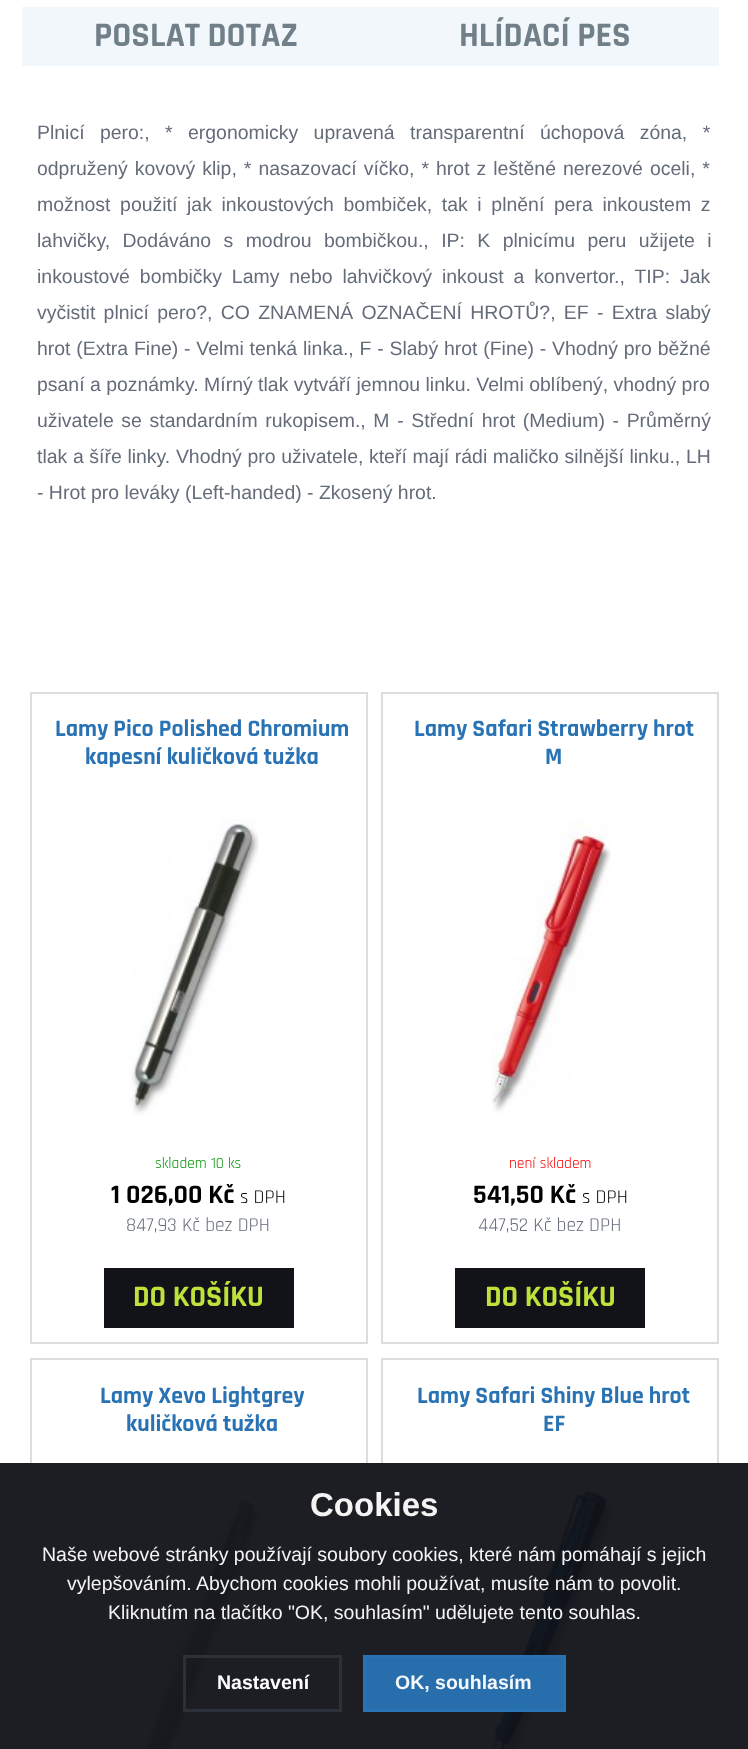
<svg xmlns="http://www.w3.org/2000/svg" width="748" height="1749">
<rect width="100%" height="100%" fill="#fff"/>
<rect x="22" y="7" width="697" height="59" fill="#f1f7fb"/>
<text x="94" y="46" style="font-family:Rajdhani;font-size:34.5px;font-weight:bold;fill:#717f88">POSLAT DOTAZ</text>
<text x="459" y="46" style="font-family:Rajdhani;font-size:34.5px;font-weight:bold;fill:#717f88">HLÍDACÍ PES</text>
<text x="37" y="139" word-spacing="10" style="font-family:Liberation Sans;font-size:19.45px;fill:#646b79">Plnicí pero:, * ergonomicky upravená transparentní úchopová zóna, *</text>
<text x="37" y="175" word-spacing="1.6" style="font-family:Liberation Sans;font-size:19.45px;fill:#646b79">odpružený kovový klip, * nasazovací víčko, * hrot z leštěné nerezové oceli, *</text>
<text x="37" y="211" word-spacing="4.25" style="font-family:Liberation Sans;font-size:19.45px;fill:#646b79">možnost použití jak inkoustových bombiček, tak i plnění pera inkoustem z</text>
<text x="37" y="247" word-spacing="7" style="font-family:Liberation Sans;font-size:19.45px;fill:#646b79">lahvičky, Dodáváno s modrou bombičkou., IP: K plnicímu peru užijete i</text>
<text x="37" y="283" word-spacing="4.5" style="font-family:Liberation Sans;font-size:19.45px;fill:#646b79">inkoustové bombičky Lamy nebo lahvičkový inkoust a konvertor., TIP: Jak</text>
<text x="37" y="319" word-spacing="2.9" style="font-family:Liberation Sans;font-size:19.45px;fill:#646b79">vyčistit plnicí pero?, CO ZNAMENÁ OZNAČENÍ HROTŮ?, EF - Extra slabý</text>
<text x="37" y="355" word-spacing="0.4" style="font-family:Liberation Sans;font-size:19.45px;fill:#646b79">hrot (Extra Fine) - Velmi tenká linka., F - Slabý hrot (Fine) - Vhodný pro běžné</text>
<text x="37" y="391" style="font-family:Liberation Sans;font-size:19.45px;fill:#646b79">psaní a poznámky. Mírný tlak vytváří jemnou linku. Velmi oblíbený, vhodný pro</text>
<text x="37" y="427" word-spacing="2.25" style="font-family:Liberation Sans;font-size:19.45px;fill:#646b79">uživatele se standardním rukopisem., M - Střední hrot (Medium) - Průměrný</text>
<text x="37" y="463" word-spacing="0.25" style="font-family:Liberation Sans;font-size:19.45px;fill:#646b79">tlak a šíře linky. Vhodný pro uživatele, kteří mají rádi maličko silnější linku., LH</text>
<text x="37" y="499" style="font-family:Liberation Sans;font-size:19.45px;fill:#646b79">- Hrot pro leváky (Left-handed) - Zkosený hrot.</text>
<rect x="31" y="693" width="336" height="650" fill="none" stroke="#ddd" stroke-width="2"/>
<text x="55" y="736" style="font-family:Rajdhani;font-size:23.75px;font-weight:bold;fill:#2973b4">Lamy Pico Polished Chromium</text>
<text x="85" y="764" style="font-family:Rajdhani;font-size:23.75px;font-weight:bold;fill:#2973b4">kapesní kuličková tužka</text>
<image x="129" y="819" width="130" height="296" href="media/1.png"/>
<text x="155" y="1168" style="font-family:Rajdhani;font-size:15.5px;fill:#009504">skladem 10 ks</text>
<text x="111" y="1203" style="font-family:Rajdhani;font-size:27px;font-weight:bold;fill:#000">1 026,00 Kč</text>
<text x="240" y="1203" style="font-family:Rajdhani;font-size:19.5px;fill:#000">s DPH</text>
<text x="126" y="1231" style="font-family:Rajdhani;font-size:19.5px;fill:#646b79">847,93 Kč bez DPH</text>
<rect x="104" y="1268" width="190" height="60" fill="#111318"/>
<text x="133" y="1306" style="font-family:Rajdhani;font-size:30px;font-weight:bold;fill:#bee13c">DO KOŠÍKU</text>
<rect x="382" y="693" width="336" height="650" fill="none" stroke="#ddd" stroke-width="2"/>
<text x="414" y="736" style="font-family:Rajdhani;font-size:23.75px;font-weight:bold;fill:#2973b4">Lamy Safari Strawberry hrot</text>
<text x="545" y="764" style="font-family:Rajdhani;font-size:23.75px;font-weight:bold;fill:#2973b4">M</text>
<image x="491" y="819" width="120" height="294" href="media/2.png"/>
<text x="509" y="1168" style="font-family:Rajdhani;font-size:15.5px;fill:#f80000">není skladem</text>
<text x="473" y="1203" style="font-family:Rajdhani;font-size:27px;font-weight:bold;fill:#000">541,50 Kč</text>
<text x="582" y="1203" style="font-family:Rajdhani;font-size:19.5px;fill:#000">s DPH</text>
<text x="478" y="1231" style="font-family:Rajdhani;font-size:19.5px;fill:#646b79">447,52 Kč bez DPH</text>
<rect x="455" y="1268" width="190" height="60" fill="#111318"/>
<text x="485" y="1306" style="font-family:Rajdhani;font-size:30px;font-weight:bold;fill:#bee13c">DO KOŠÍKU</text>
<rect x="31" y="1359" width="336" height="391" fill="none" stroke="#ddd" stroke-width="2"/>
<text x="100" y="1403" style="font-family:Rajdhani;font-size:23.75px;font-weight:bold;fill:#2973b4">Lamy Xevo Lightgrey</text>
<text x="126" y="1431" style="font-family:Rajdhani;font-size:23.75px;font-weight:bold;fill:#2973b4">kuličková tužka</text>
<image x="144" y="1497" width="117" height="252" href="media/3.png"/>
<rect x="382" y="1359" width="336" height="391" fill="none" stroke="#ddd" stroke-width="2"/>
<text x="417" y="1403" style="font-family:Rajdhani;font-size:23.75px;font-weight:bold;fill:#2973b4">Lamy Safari Shiny Blue hrot</text>
<text x="543" y="1431" style="font-family:Rajdhani;font-size:23.75px;font-weight:bold;fill:#2973b4">EF</text>
<image x="491" y="1485" width="126" height="264" href="media/4.png"/>
<rect y="1463" width="748" height="286" fill="#101217f2"/>
<text x="310" y="1516" style="font-family:Liberation Sans;font-size:33px;font-weight:bold;fill:#f4f4f4">Cookies</text>
<text x="42" y="1561" style="font-family:Liberation Sans;font-size:19.5px;fill:#f4f4f4">Naše webové stránky používají soubory cookies, které nám pomáhají s jejich</text>
<text x="67" y="1590" style="font-family:Liberation Sans;font-size:19.5px;fill:#f4f4f4">vylepšováním. Abychom cookies mohli používat, musíte nám to povolit.</text>
<text x="108" y="1619" style="font-family:Liberation Sans;font-size:19.5px;fill:#f4f4f4">Kliknutím na tlačítko "OK, souhlasím" udělujete tento souhlas.</text>
<rect x="184.5" y="1656.5" width="156" height="54" fill="none" stroke="#2c313bf2" stroke-width="3"/>
<text x="217" y="1689" style="font-family:Liberation Sans;font-size:19.5px;font-weight:bold;fill:#fff">Nastavení</text>
<rect x="364.5" y="1656.5" width="200" height="54" fill="#2973b4f2" stroke="#2973b4" stroke-width="3"/>
<text x="395" y="1689" style="font-family:Liberation Sans;font-size:19.5px;font-weight:bold;fill:#f4f8fb">OK, souhlasím</text>
</svg>
